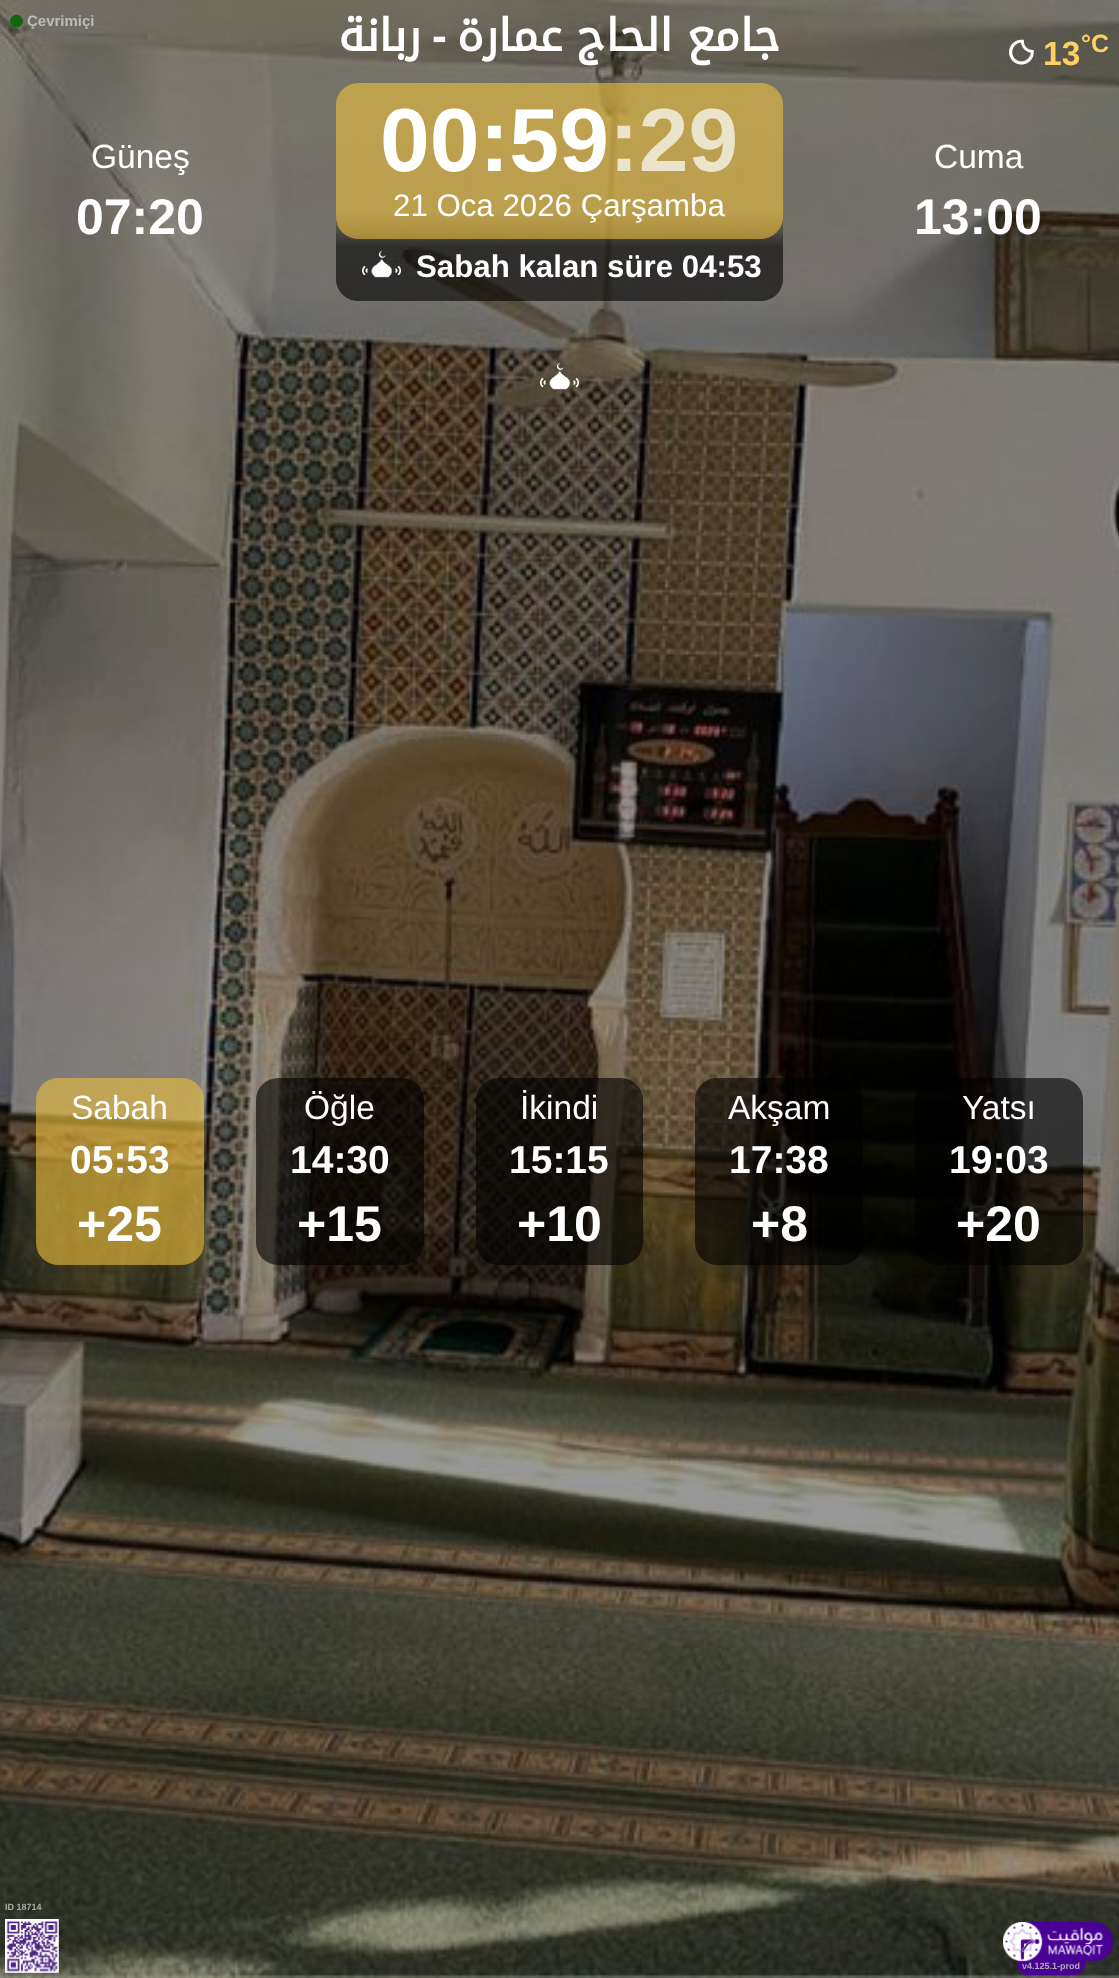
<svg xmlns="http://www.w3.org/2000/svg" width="1119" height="1978">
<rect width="100%" height="100%" fill="#fff"/>
<image x="0" y="0" width="1119" height="1978" href="media/1.png"/>
<path d="M12 16.5c6-5.5 15 3 9 9c-6 6-15-3-9-9z" fill="#126611"/>
<text x="27" y="26" style="font-family:Liberation Sans;font-size:15px;font-weight:bold;fill:#bdbbbb">Çevrimiçi</text>
<text x="421" y="51" style="font-family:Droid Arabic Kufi;font-size:44.75px;font-weight:bold;direction:rtl;fill:#fff">ربانة</text>
<text x="447" y="51" style="font-family:Liberation Sans;font-size:44.75px;font-weight:bold;direction:rtl;fill:#fff">-</text>
<text x="780" y="51" word-spacing="-1" style="font-family:Droid Arabic Kufi;font-size:44.75px;font-weight:bold;direction:rtl;fill:#fff">جامع الحاج عمارة</text>
<image x="1009" y="39" width="25" height="26" href="media/2.png"/>
<text x="1043" y="65" style="font-family:Liberation Sans;font-size:33.5px;font-weight:bold;fill:#ffd05f">13</text>
<text x="1081" y="52" style="font-family:Liberation Sans;font-size:25px;font-weight:bold;fill:#ffd05f">°C</text>
<text x="91" y="168" style="font-family:Liberation Sans;font-size:33.5px;fill:#fff">Güneş</text>
<text x="76" y="234" style="font-family:Liberation Sans;font-size:50px;font-weight:bold;fill:#fff">07:20</text>
<rect x="336" y="83" width="447" height="156" rx="22" fill="#ecc03d99"/>
<text x="380" y="171" style="font-family:Liberation Sans;font-size:89.5px;font-weight:bold;fill:#fff">00:59</text>
<text x="609" y="171" style="font-family:Liberation Sans;font-size:89.5px;font-weight:bold;fill:#ebe3ca">:29</text>
<text x="393" y="216" style="font-family:Liberation Sans;font-size:31.25px;fill:#fff">21 Oca 2026 Çarşamba</text>
<image x="362" y="250" width="39" height="28" href="media/3.png"/>
<text x="416" y="277" style="font-family:Liberation Sans;font-size:31.25px;font-weight:bold;fill:#fff">Sabah kalan süre 04:53</text>
<image x="540" y="362" width="39" height="28" href="media/4.png"/>
<text x="934" y="168" style="font-family:Liberation Sans;font-size:33.5px;fill:#fff">Cuma</text>
<text x="914" y="234" style="font-family:Liberation Sans;font-size:50px;font-weight:bold;fill:#fff">13:00</text>
<rect x="36" y="1078" width="168" height="187" rx="22" fill="#ecc03d99"/>
<text x="71" y="1119" style="font-family:Liberation Sans;font-size:33.5px;fill:#fff">Sabah</text>
<text x="70" y="1173" style="font-family:Liberation Sans;font-size:39px;font-weight:bold;fill:#fff">05:53</text>
<text x="77" y="1241" style="font-family:Liberation Sans;font-size:50px;font-weight:bold;fill:#fff">+25</text>
<rect x="256" y="1078" width="168" height="187" rx="22" fill="#00000099"/>
<text x="304" y="1119" style="font-family:Liberation Sans;font-size:33.5px;fill:#fff">Öğle</text>
<text x="290" y="1173" style="font-family:Liberation Sans;font-size:39px;font-weight:bold;fill:#fff">14:30</text>
<text x="297" y="1241" style="font-family:Liberation Sans;font-size:50px;font-weight:bold;fill:#fff">+15</text>
<rect x="476" y="1078" width="167" height="187" rx="22" fill="#00000099"/>
<text x="520" y="1119" style="font-family:Liberation Sans;font-size:33.5px;fill:#fff">İkindi</text>
<text x="509" y="1173" style="font-family:Liberation Sans;font-size:39px;font-weight:bold;fill:#fff">15:15</text>
<text x="517" y="1241" style="font-family:Liberation Sans;font-size:50px;font-weight:bold;fill:#fff">+10</text>
<rect x="695" y="1078" width="168" height="187" rx="22" fill="#00000099"/>
<text x="728" y="1119" style="font-family:Liberation Sans;font-size:33.5px;fill:#fff">Akşam</text>
<text x="729" y="1173" style="font-family:Liberation Sans;font-size:39px;font-weight:bold;fill:#fff">17:38</text>
<text x="751" y="1241" style="font-family:Liberation Sans;font-size:50px;font-weight:bold;fill:#fff">+8</text>
<rect x="915" y="1078" width="168" height="187" rx="22" fill="#00000099"/>
<text x="962" y="1119" style="font-family:Liberation Sans;font-size:33.5px;fill:#fff">Yatsı</text>
<text x="949" y="1173" style="font-family:Liberation Sans;font-size:39px;font-weight:bold;fill:#fff">19:03</text>
<text x="956" y="1241" style="font-family:Liberation Sans;font-size:50px;font-weight:bold;fill:#fff">+20</text>
<text x="5" y="1910" style="font-family:Liberation Sans;font-size:9px;font-weight:bold;fill:#adadad">ID 18714</text>
<image x="5" y="1919" width="54" height="54" href="media/5.png"/>
<path d="M1017 1957h68v7c0 6-5 11-11 11h-46c-6 0-11-5-11-11z" fill="#490094"/>
<image x="1003" y="1922" width="111" height="40" href="media/6.png"/>
<text x="1022" y="1969" style="font-family:Liberation Sans;font-size:9px;font-weight:bold;fill:#adadad">v4.125.1-prod</text>
</svg>
